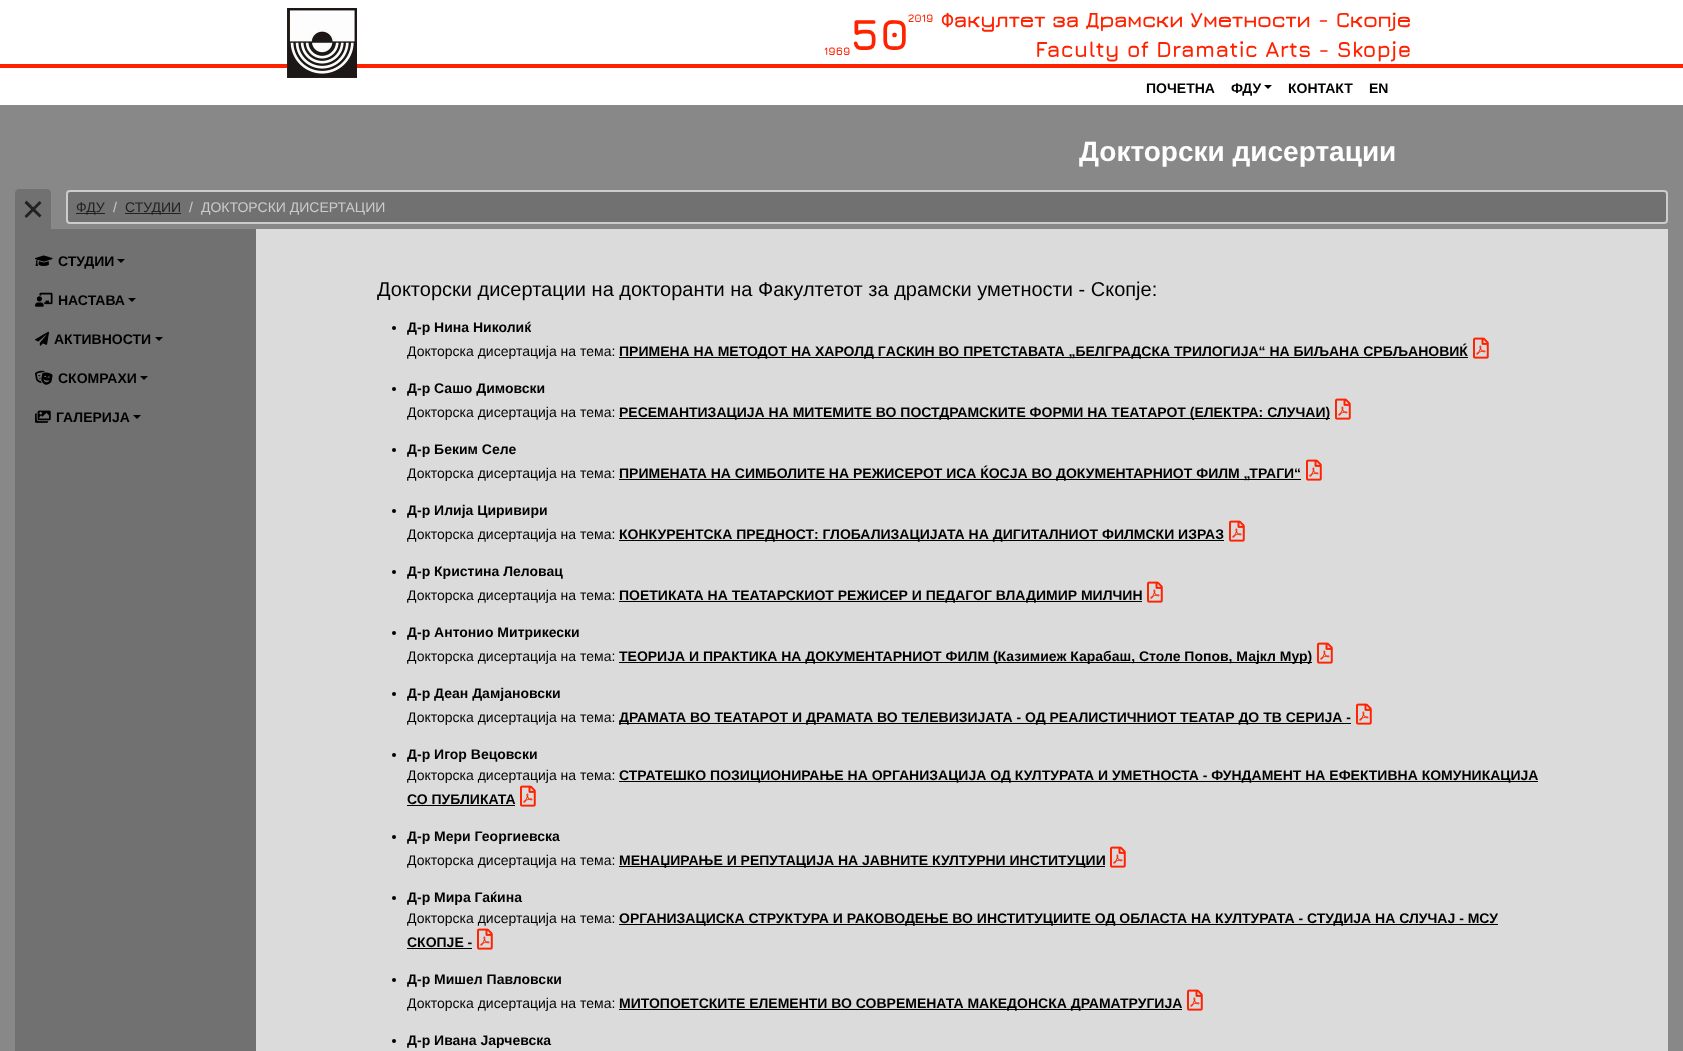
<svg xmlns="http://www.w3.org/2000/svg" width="1683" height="1051">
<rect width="100%" height="100%" fill="#fff"/>
<rect y="64" width="1683" height="4" fill="#f20"/>
<image x="287" y="8" width="70" height="70" href="media/1.png"/>
<text x="908" y="22" style="font-family:Jura;font-size:11px;font-weight:bold;fill:#f20">2019</text>
<text x="850" y="50" style="font-family:Jura;font-size:44px;font-weight:bold;fill:#f20">50</text>
<text x="824" y="55" style="font-family:Jura;font-size:11px;font-weight:bold;fill:#f20">1969</text>
<text x="941" y="27" style="font-family:Jura;font-size:22px;font-weight:bold;fill:#f20">Факултет за Драмски Уметности - Скопје</text>
<text x="1035" y="57" style="font-family:Jura;font-size:22px;font-weight:bold;fill:#f20">Faculty of Dramatic Arts - Skopje</text>
<text x="1146" y="93" style="font-family:Liberation Sans;font-size:14px;font-weight:bold;fill:#000">ПОЧЕТНА</text>
<text x="1231" y="93" style="font-family:Liberation Sans;font-size:14px;font-weight:bold;fill:#000">ФДУ</text>
<path d="M1264 85h8l-4 4z" fill="#000"/>
<text x="1288" y="93" style="font-family:Liberation Sans;font-size:14px;font-weight:bold;fill:#000">КОНТАКТ</text>
<text x="1369" y="93" style="font-family:Liberation Sans;font-size:14px;font-weight:bold;fill:#000">EN</text>
<rect y="105" width="1683" height="946" fill="#888"/>
<text x="1079" y="161" style="font-family:Liberation Sans;font-size:28px;font-weight:bold;fill:#fff">Докторски дисертации</text>
<path d="M19 189h28c2 0 4 2 4 4v36h-36v-36c0-2 2-4 4-4z" fill="#717171"/>
<path d="M26.5 200.5l15 15l-2 2l-15-14.5z" fill="#222"/>
<path d="M24.5 216l15-15l2 2l-15 15z" fill="#222"/>
<rect x="67" y="191" width="1600" height="32" rx="3" fill="#717171" stroke="#ccc" stroke-width="2"/>
<rect x="76" y="213" width="29" height="1" fill="#222"/>
<text x="76" y="212" style="font-family:Liberation Sans;font-size:14px;fill:#222">ФДУ</text>
<text x="113" y="212" style="font-family:Liberation Sans;font-size:14px;fill:#ccc">/</text>
<rect x="125" y="213" width="56" height="1" fill="#222"/>
<text x="125" y="212" style="font-family:Liberation Sans;font-size:14px;fill:#222">СТУДИИ</text>
<text x="189" y="212" style="font-family:Liberation Sans;font-size:14px;fill:#ccc">/</text>
<text x="201" y="212" style="font-family:Liberation Sans;font-size:14px;fill:#ccc">ДОКТОРСКИ ДИСЕРТАЦИИ</text>
<rect x="15" y="229" width="241" height="822" fill="#717171"/>
<image x="35" y="255" width="18" height="11" href="media/2.png"/>
<text x="58" y="266" style="font-family:Liberation Sans;font-size:14px;font-weight:bold;fill:#000">СТУДИИ</text>
<path d="M117 259h8l-4 4z" fill="#000"/>
<image x="35" y="292" width="18" height="15" href="media/3.png"/>
<text x="58" y="305" style="font-family:Liberation Sans;font-size:14px;font-weight:bold;fill:#000">НАСТАВА</text>
<path d="M128 298h8l-4 4z" fill="#000"/>
<image x="35" y="331" width="14" height="15" href="media/4.png"/>
<text x="54" y="344" style="font-family:Liberation Sans;font-size:14px;font-weight:bold;fill:#000">АКТИВНОСТИ</text>
<path d="M155 337h8l-4 4z" fill="#000"/>
<image x="35" y="370" width="18" height="15" href="media/5.png"/>
<text x="58" y="383" style="font-family:Liberation Sans;font-size:14px;font-weight:bold;fill:#000">СКОМРАХИ</text>
<path d="M140 376h8l-4 4z" fill="#000"/>
<image x="35" y="410" width="16" height="13" href="media/6.png"/>
<text x="56" y="422" style="font-family:Liberation Sans;font-size:14px;font-weight:bold;fill:#000">ГАЛЕРИЈА</text>
<path d="M133 415h8l-4 4z" fill="#000"/>
<rect x="256" y="229" width="1412" height="822" fill="#dbdbdb"/>
<text x="377" y="296" style="font-family:Liberation Sans;font-size:20px;fill:#000">Докторски дисертации на докторанти на Факултетот за драмски уметности - Скопје:</text>
<circle cx="394" cy="328" r="2" fill="#000"/>
<text x="407" y="332" style="font-family:Liberation Sans;font-size:14px;font-weight:bold;fill:#000">Д-р Нина Николиќ</text>
<text x="407" y="356" style="font-family:Liberation Sans;font-size:14px;fill:#000">Докторска дисертација на тема:</text>
<rect x="619" y="357" width="849" height="1" fill="#000"/>
<text x="619" y="356" style="font-family:Liberation Sans;font-size:14px;font-weight:bold;fill:#000">ПРИМЕНА НА МЕТОДОТ НА ХАРОЛД ГAСКИН ВО ПРЕТСТАВАТА „БЕЛГРАДСКА ТРИЛОГИЈА“ НА БИЉАНА СРБЉАНОВИЌ</text>
<image x="1473" y="337" width="16" height="22" href="media/7.png"/>
<circle cx="394" cy="389" r="2" fill="#000"/>
<text x="407" y="393" style="font-family:Liberation Sans;font-size:14px;font-weight:bold;fill:#000">Д-р Сашо Димовски</text>
<text x="407" y="417" style="font-family:Liberation Sans;font-size:14px;fill:#000">Докторска дисертација на тема:</text>
<rect x="619" y="418" width="711" height="1" fill="#000"/>
<text x="619" y="417" style="font-family:Liberation Sans;font-size:14px;font-weight:bold;fill:#000">РЕСЕМАНТИЗАЦИЈА НА МИТЕМИТЕ ВО ПОСТДРАМСКИТЕ ФОРМИ НА ТЕАТAРОТ (ЕЛЕКТРА: СЛУЧАИ)</text>
<image x="1335" y="398" width="16" height="22" href="media/7.png"/>
<circle cx="394" cy="450" r="2" fill="#000"/>
<text x="407" y="454" style="font-family:Liberation Sans;font-size:14px;font-weight:bold;fill:#000">Д-р Беким Селе</text>
<text x="407" y="478" style="font-family:Liberation Sans;font-size:14px;fill:#000">Докторска дисертација на тема:</text>
<rect x="619" y="479" width="682" height="1" fill="#000"/>
<text x="619" y="478" style="font-family:Liberation Sans;font-size:14px;font-weight:bold;fill:#000">ПРИМЕНАТА НА СИМБОЛИТЕ НА РЕЖИСЕРОТ ИСА ЌОСЈА ВО ДОКУМЕНТАРНИОТ ФИЛМ „ТРАГИ“</text>
<image x="1306" y="459" width="16" height="22" href="media/7.png"/>
<circle cx="394" cy="511" r="2" fill="#000"/>
<text x="407" y="515" style="font-family:Liberation Sans;font-size:14px;font-weight:bold;fill:#000">Д-р Илија Циривири</text>
<text x="407" y="539" style="font-family:Liberation Sans;font-size:14px;fill:#000">Докторска дисертација на тема:</text>
<rect x="619" y="540" width="605" height="1" fill="#000"/>
<text x="619" y="539" style="font-family:Liberation Sans;font-size:14px;font-weight:bold;fill:#000">КОНКУРЕНТСКА ПРЕДНОСТ: ГЛОБАЛИЗАЦИЈАТА НА ДИГИТАЛНИОТ ФИЛМСКИ ИЗРАЗ</text>
<image x="1229" y="520" width="16" height="22" href="media/7.png"/>
<circle cx="394" cy="572" r="2" fill="#000"/>
<text x="407" y="576" style="font-family:Liberation Sans;font-size:14px;font-weight:bold;fill:#000">Д-р Кристина Леловац</text>
<text x="407" y="600" style="font-family:Liberation Sans;font-size:14px;fill:#000">Докторска дисертација на тема:</text>
<rect x="619" y="601" width="523" height="1" fill="#000"/>
<text x="619" y="600" style="font-family:Liberation Sans;font-size:14px;font-weight:bold;fill:#000">ПОЕТИКАТА НА ТЕАТАРСКИОТ РЕЖИСЕР И ПЕДАГОГ ВЛАДИМИР МИЛЧИН</text>
<image x="1147" y="581" width="16" height="22" href="media/7.png"/>
<circle cx="394" cy="633" r="2" fill="#000"/>
<text x="407" y="637" style="font-family:Liberation Sans;font-size:14px;font-weight:bold;fill:#000">Д-р Антонио Митрикески</text>
<text x="407" y="661" style="font-family:Liberation Sans;font-size:14px;fill:#000">Докторска дисертација на тема:</text>
<rect x="619" y="662" width="693" height="1" fill="#000"/>
<text x="619" y="661" style="font-family:Liberation Sans;font-size:14px;font-weight:bold;fill:#000">ТЕОРИЈА И ПРАКТИКА НА ДОКУМЕНТАРНИОТ ФИЛМ (Казимиеж Карабаш, Столе Попов, Мајкл Мур)</text>
<image x="1317" y="642" width="16" height="22" href="media/7.png"/>
<circle cx="394" cy="694" r="2" fill="#000"/>
<text x="407" y="698" style="font-family:Liberation Sans;font-size:14px;font-weight:bold;fill:#000">Д-р Деан Дамјановски</text>
<text x="407" y="722" style="font-family:Liberation Sans;font-size:14px;fill:#000">Докторска дисертација на тема:</text>
<rect x="619" y="723" width="732" height="1" fill="#000"/>
<text x="619" y="722" style="font-family:Liberation Sans;font-size:14px;font-weight:bold;fill:#000">ДРАМАТА ВО ТЕАТАРОТ И ДРАМАТА ВО ТЕЛЕВИЗИЈАТА - ОД РЕАЛИСТИЧНИОТ ТЕАТАР ДО ТВ СЕРИЈА -</text>
<image x="1356" y="703" width="16" height="22" href="media/7.png"/>
<circle cx="394" cy="755" r="2" fill="#000"/>
<text x="407" y="759" style="font-family:Liberation Sans;font-size:14px;font-weight:bold;fill:#000">Д-р Игор Вецовски</text>
<text x="407" y="780" style="font-family:Liberation Sans;font-size:14px;fill:#000">Докторска дисертација на тема:</text>
<rect x="619" y="781" width="919" height="1" fill="#000"/>
<text x="619" y="780" style="font-family:Liberation Sans;font-size:14px;font-weight:bold;fill:#000">СТРАТЕШКО ПОЗИЦИОНИРАЊЕ НА ОРГАНИЗАЦИЈА ОД КУЛТУРАТА И УМЕТНОСТА - ФУНДАМЕНТ НА ЕФЕКТИВНА КОМУНИКАЦИЈА</text>
<text x="407" y="804" style="font-family:Liberation Sans;font-size:14px;font-weight:bold;fill:#000">СО ПУБЛИКАТА</text>
<rect x="407" y="805" width="108" height="1" fill="#000"/>
<image x="520" y="785" width="16" height="22" href="media/7.png"/>
<circle cx="394" cy="837" r="2" fill="#000"/>
<text x="407" y="841" style="font-family:Liberation Sans;font-size:14px;font-weight:bold;fill:#000">Д-р Мери Георгиевска</text>
<text x="407" y="865" style="font-family:Liberation Sans;font-size:14px;fill:#000">Докторска дисертација на тема:</text>
<rect x="619" y="866" width="486" height="1" fill="#000"/>
<text x="619" y="865" style="font-family:Liberation Sans;font-size:14px;font-weight:bold;fill:#000">МЕНАЏИРАЊЕ И РЕПУТАЦИЈА НА ЈАВНИТЕ КУЛТУРНИ ИНСТИТУЦИИ</text>
<image x="1110" y="846" width="16" height="22" href="media/7.png"/>
<circle cx="394" cy="898" r="2" fill="#000"/>
<text x="407" y="902" style="font-family:Liberation Sans;font-size:14px;font-weight:bold;fill:#000">Д-р Мира Гаќина</text>
<text x="407" y="923" style="font-family:Liberation Sans;font-size:14px;fill:#000">Докторска дисертација на тема:</text>
<rect x="619" y="924" width="879" height="1" fill="#000"/>
<text x="619" y="923" style="font-family:Liberation Sans;font-size:14px;font-weight:bold;fill:#000">ОРГАНИЗАЦИСКА СТРУКТУРА И РАКОВОДЕЊЕ ВО ИНСТИТУЦИИТЕ ОД ОБЛАСТА НА КУЛТУРАТА - СТУДИЈА НА СЛУЧАЈ - МСУ</text>
<text x="407" y="947" style="font-family:Liberation Sans;font-size:14px;font-weight:bold;fill:#000">СКОПЈЕ -</text>
<rect x="407" y="948" width="65" height="1" fill="#000"/>
<image x="477" y="928" width="16" height="22" href="media/7.png"/>
<circle cx="394" cy="980" r="2" fill="#000"/>
<text x="407" y="984" style="font-family:Liberation Sans;font-size:14px;font-weight:bold;fill:#000">Д-р Мишел Павловски</text>
<text x="407" y="1008" style="font-family:Liberation Sans;font-size:14px;fill:#000">Докторска дисертација на тема:</text>
<rect x="619" y="1009" width="563" height="1" fill="#000"/>
<text x="619" y="1008" style="font-family:Liberation Sans;font-size:14px;font-weight:bold;fill:#000">МИТОПОЕТСКИТЕ ЕЛЕМЕНТИ ВО СОВРЕМЕНАТА МАКЕДОНСКА ДРАМАТРУГИЈА</text>
<image x="1187" y="989" width="16" height="22" href="media/7.png"/>
<circle cx="394" cy="1041" r="2" fill="#000"/>
<text x="407" y="1045" style="font-family:Liberation Sans;font-size:14px;font-weight:bold;fill:#000">Д-р Ивана Јарчевска</text>
</svg>
